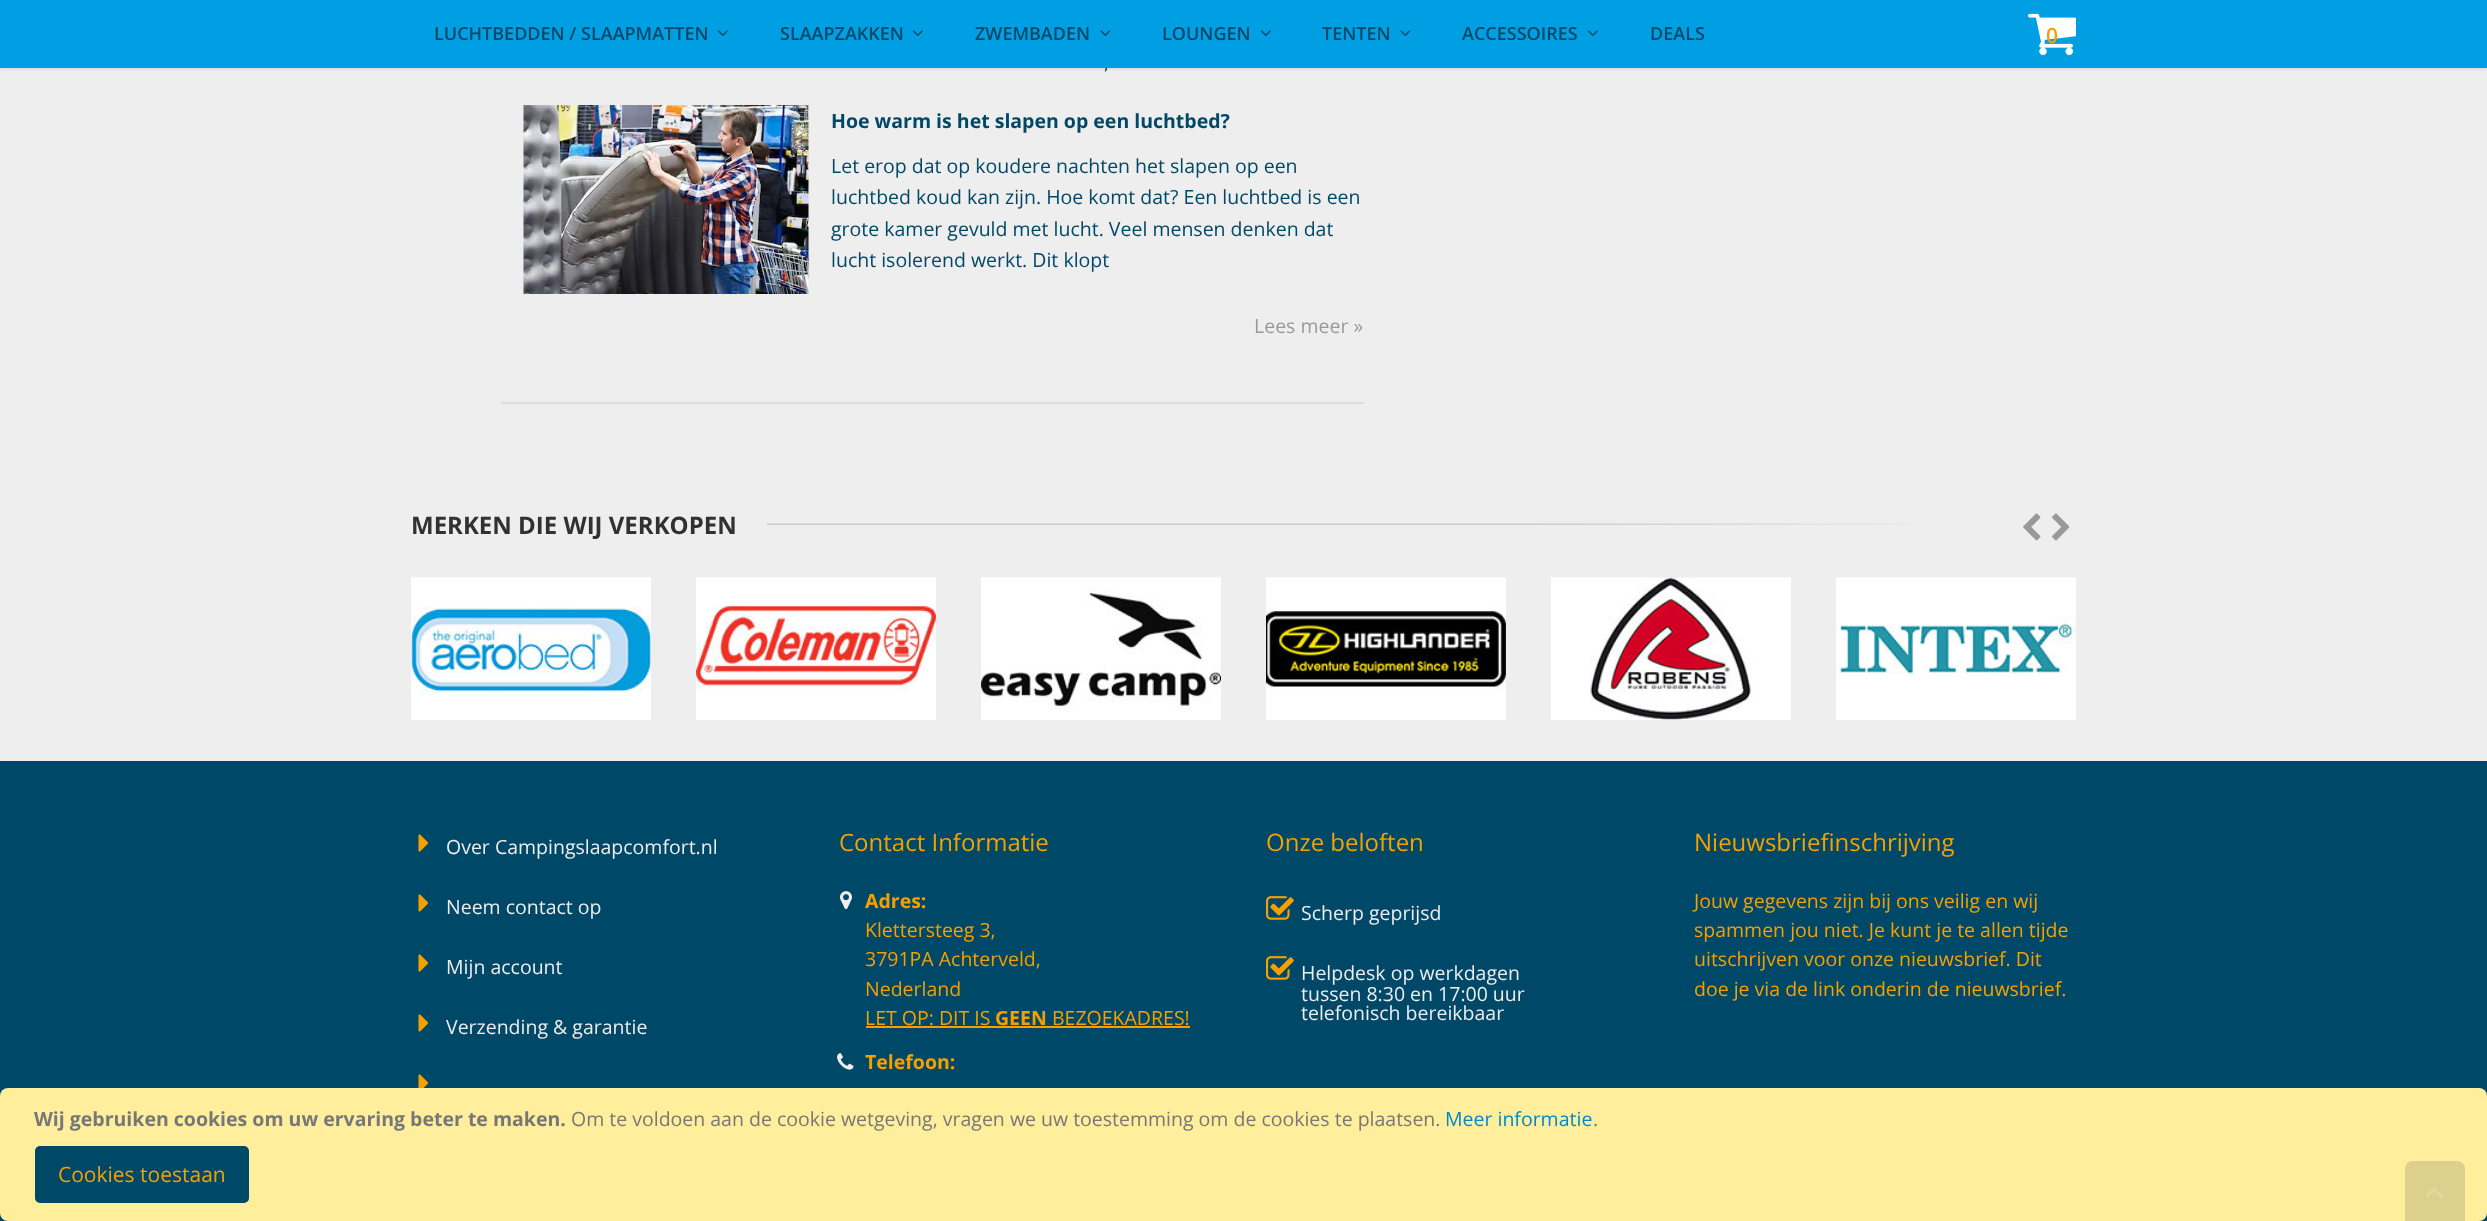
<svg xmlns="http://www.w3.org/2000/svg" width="2487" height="1221">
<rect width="100%" height="100%" fill="#eee"/>
<rect y="2" width="2487" height="67" fill="#0000001a" filter="blur(1.5px)"/>
<text x="1104" y="69" style="font-family:Open Sans;font-size:19.5px;fill:#004867">,</text>
<rect width="2487" height="68" fill="#009fe3"/>
<text x="434" y="40" style="font-family:Open Sans;font-size:18px;font-weight:600;fill:#004867">LUCHTBEDDEN / SLAAPMATTEN</text>
<image x="717" y="30" width="11" height="6" href="media/1.png"/>
<text x="780" y="40" style="font-family:Open Sans;font-size:18px;font-weight:600;fill:#004867">SLAAPZAKKEN</text>
<image x="912" y="30" width="11" height="6" href="media/1.png"/>
<text x="975" y="40" style="font-family:Open Sans;font-size:18px;font-weight:600;fill:#004867">ZWEMBADEN</text>
<image x="1100" y="30" width="11" height="6" href="media/2.png"/>
<text x="1162" y="40" style="font-family:Open Sans;font-size:18px;font-weight:600;fill:#004867">LOUNGEN</text>
<image x="1260" y="30" width="11" height="6" href="media/1.png"/>
<text x="1322" y="40" style="font-family:Open Sans;font-size:18px;font-weight:600;fill:#004867">TENTEN</text>
<image x="1400" y="30" width="11" height="6" href="media/2.png"/>
<text x="1462" y="40" style="font-family:Open Sans;font-size:18px;font-weight:600;fill:#004867">ACCESSOIRES</text>
<image x="1587" y="30" width="11" height="6" href="media/1.png"/>
<text x="1650" y="40" style="font-family:Open Sans;font-size:18px;font-weight:600;fill:#004867">DEALS</text>
<image x="2028" y="13" width="48" height="43" href="media/3.png"/>
<text x="2046" y="43" style="font-family:Open Sans;font-size:21px;font-weight:600;fill:#f6a000">0</text>
<rect x="501" y="402" width="863" height="2" fill="#ddd"/>
<image x="523" y="105" width="286" height="189" href="media/4.png"/>
<text x="831" y="128" style="font-family:Open Sans;font-size:19.5px;font-weight:bold;fill:#004867">Hoe warm is het slapen op een luchtbed?</text>
<text x="831" y="173" style="font-family:Open Sans;font-size:19.5px;fill:#004867">Let erop dat op koudere nachten het slapen op een</text>
<text x="831" y="204" style="font-family:Open Sans;font-size:19.5px;fill:#004867">luchtbed koud kan zijn. Hoe komt dat? Een luchtbed is een</text>
<text x="831" y="236" style="font-family:Open Sans;font-size:19.5px;fill:#004867">grote kamer gevuld met lucht. Veel mensen denken dat</text>
<text x="831" y="267" style="font-family:Open Sans;font-size:19.5px;fill:#004867">lucht isolerend werkt. Dit klopt</text>
<text x="1254" y="333" style="font-family:Open Sans;font-size:19.5px;fill:#999">Lees meer »</text>
<image x="2023" y="513" width="18" height="28" href="media/5.png"/>
<image x="2052" y="513" width="18" height="28" href="media/6.png"/>
<image x="411" y="577" width="240" height="143" href="media/7.png"/>
<image x="696" y="577" width="240" height="143" href="media/8.png"/>
<image x="981" y="577" width="240" height="143" href="media/9.png"/>
<image x="1266" y="577" width="240" height="143" href="media/10.png"/>
<image x="1551" y="577" width="240" height="143" href="media/11.png"/>
<image x="1836" y="577" width="240" height="143" href="media/12.png"/>
<image x="767" y="523" width="1151" height="2" href="media/13.png"/>
<text x="411" y="534" style="font-family:Open Sans;font-size:24px;font-weight:bold;fill:#313131">MERKEN DIE WIJ VERKOPEN</text>
<rect y="761" width="2487" height="460" fill="#004867"/>
<image x="418" y="834" width="11" height="18" href="media/14.png"/>
<text x="446" y="854" style="font-family:Open Sans;font-size:19.5px;fill:#ededed">Over Campingslaapcomfort.nl</text>
<image x="418" y="894" width="11" height="18" href="media/14.png"/>
<text x="446" y="914" style="font-family:Open Sans;font-size:19.5px;fill:#ededed">Neem contact op</text>
<image x="418" y="954" width="11" height="18" href="media/14.png"/>
<text x="446" y="974" style="font-family:Open Sans;font-size:19.5px;fill:#ededed">Mijn account</text>
<image x="418" y="1014" width="11" height="18" href="media/14.png"/>
<text x="446" y="1034" style="font-family:Open Sans;font-size:19.5px;fill:#ededed">Verzending &amp; garantie</text>
<image x="418" y="1074" width="11" height="14" href="media/15.png"/>
<text x="839" y="851" style="font-family:Open Sans;font-size:24px;fill:#f6a000">Contact Informatie</text>
<image x="840" y="891" width="12" height="19" href="media/16.png"/>
<text x="865" y="908" style="font-family:Open Sans;font-size:19.5px;font-weight:bold;fill:#f6a000">Adres:</text>
<text x="865" y="937" style="font-family:Open Sans;font-size:19.5px;fill:#f6a000">Klettersteeg 3,</text>
<text x="865" y="966" style="font-family:Open Sans;font-size:19.5px;fill:#f6a000">3791PA Achterveld,</text>
<text x="865" y="996" style="font-family:Open Sans;font-size:19.5px;fill:#f6a000">Nederland</text>
<text x="865" y="1025" style="font-family:Open Sans;font-size:19.5px;fill:#f6a000">LET OP: DIT IS</text>
<rect x="866" y="1026" width="324" height="2" fill="#f6a000"/>
<text x="995" y="1025" style="font-family:Open Sans;font-size:19.5px;font-weight:bold;fill:#f6a000">GEEN</text>
<text x="1052" y="1025" style="font-family:Open Sans;font-size:19.5px;fill:#f6a000">BEZOEKADRES!</text>
<image x="837" y="1053" width="17" height="17" href="media/17.png"/>
<text x="865" y="1069" style="font-family:Open Sans;font-size:19.5px;font-weight:bold;fill:#f6a000">Telefoon:</text>
<text x="1266" y="851" style="font-family:Open Sans;font-size:24px;fill:#f6a000">Onze beloften</text>
<image x="1266" y="896" width="28" height="24" href="media/18.png"/>
<text x="1301" y="920" style="font-family:Open Sans;font-size:19.5px;fill:#ededed">Scherp geprijsd</text>
<image x="1266" y="956" width="28" height="24" href="media/18.png"/>
<text x="1301" y="980" style="font-family:Open Sans;font-size:19.5px;fill:#ededed">Helpdesk op werkdagen</text>
<text x="1301" y="1001" style="font-family:Open Sans;font-size:19.5px;fill:#ededed">tussen 8:30 en 17:00 uur</text>
<text x="1301" y="1020" style="font-family:Open Sans;font-size:19.5px;fill:#ededed">telefonisch bereikbaar</text>
<text x="1694" y="851" style="font-family:Open Sans;font-size:24px;fill:#f6a000">Nieuwsbriefinschrijving</text>
<text x="1694" y="908" style="font-family:Open Sans;font-size:19.5px;fill:#f6a000">Jouw gegevens zijn bij ons veilig en wij</text>
<text x="1694" y="937" style="font-family:Open Sans;font-size:19.5px;fill:#f6a000">spammen jou niet. Je kunt je te allen tijde</text>
<text x="1694" y="966" style="font-family:Open Sans;font-size:19.5px;fill:#f6a000">uitschrijven voor onze nieuwsbrief. Dit</text>
<text x="1694" y="996" style="font-family:Open Sans;font-size:19.5px;fill:#f6a000">doe je via de link onderin de nieuwsbrief.</text>
<rect y="1088" width="2487" height="133" rx="8" fill="#ffee9c"/>
<path d="M2413 1161h44c4.5 0 8 3.5 8 8v52h-60v-52c0-4.5 3.5-8 8-8z" fill="#ddcf8c"/>
<image x="2425" y="1187" width="18" height="11" href="media/19.png"/>
<text x="34" y="1126" style="font-family:Open Sans;font-size:19.5px;font-weight:bold;fill:#777">Wij gebruiken cookies om uw ervaring beter te maken.</text>
<text x="571" y="1126" style="font-family:Open Sans;font-size:19.5px;fill:#777">Om te voldoen aan de cookie wetgeving, vragen we uw toestemming om de cookies te plaatsen.</text>
<text x="1445" y="1126" style="font-family:Open Sans;font-size:19.5px;fill:#08c">Meer informatie</text>
<text x="1593" y="1126" style="font-family:Open Sans;font-size:19.5px;fill:#777">.</text>
<rect x="36" y="1147" width="212" height="55" rx="4" fill="#004867" stroke="#004867" stroke-width="2"/>
<text x="58" y="1182" style="font-family:Open Sans;font-size:21px;fill:#f6a000">Cookies toestaan</text>
</svg>
